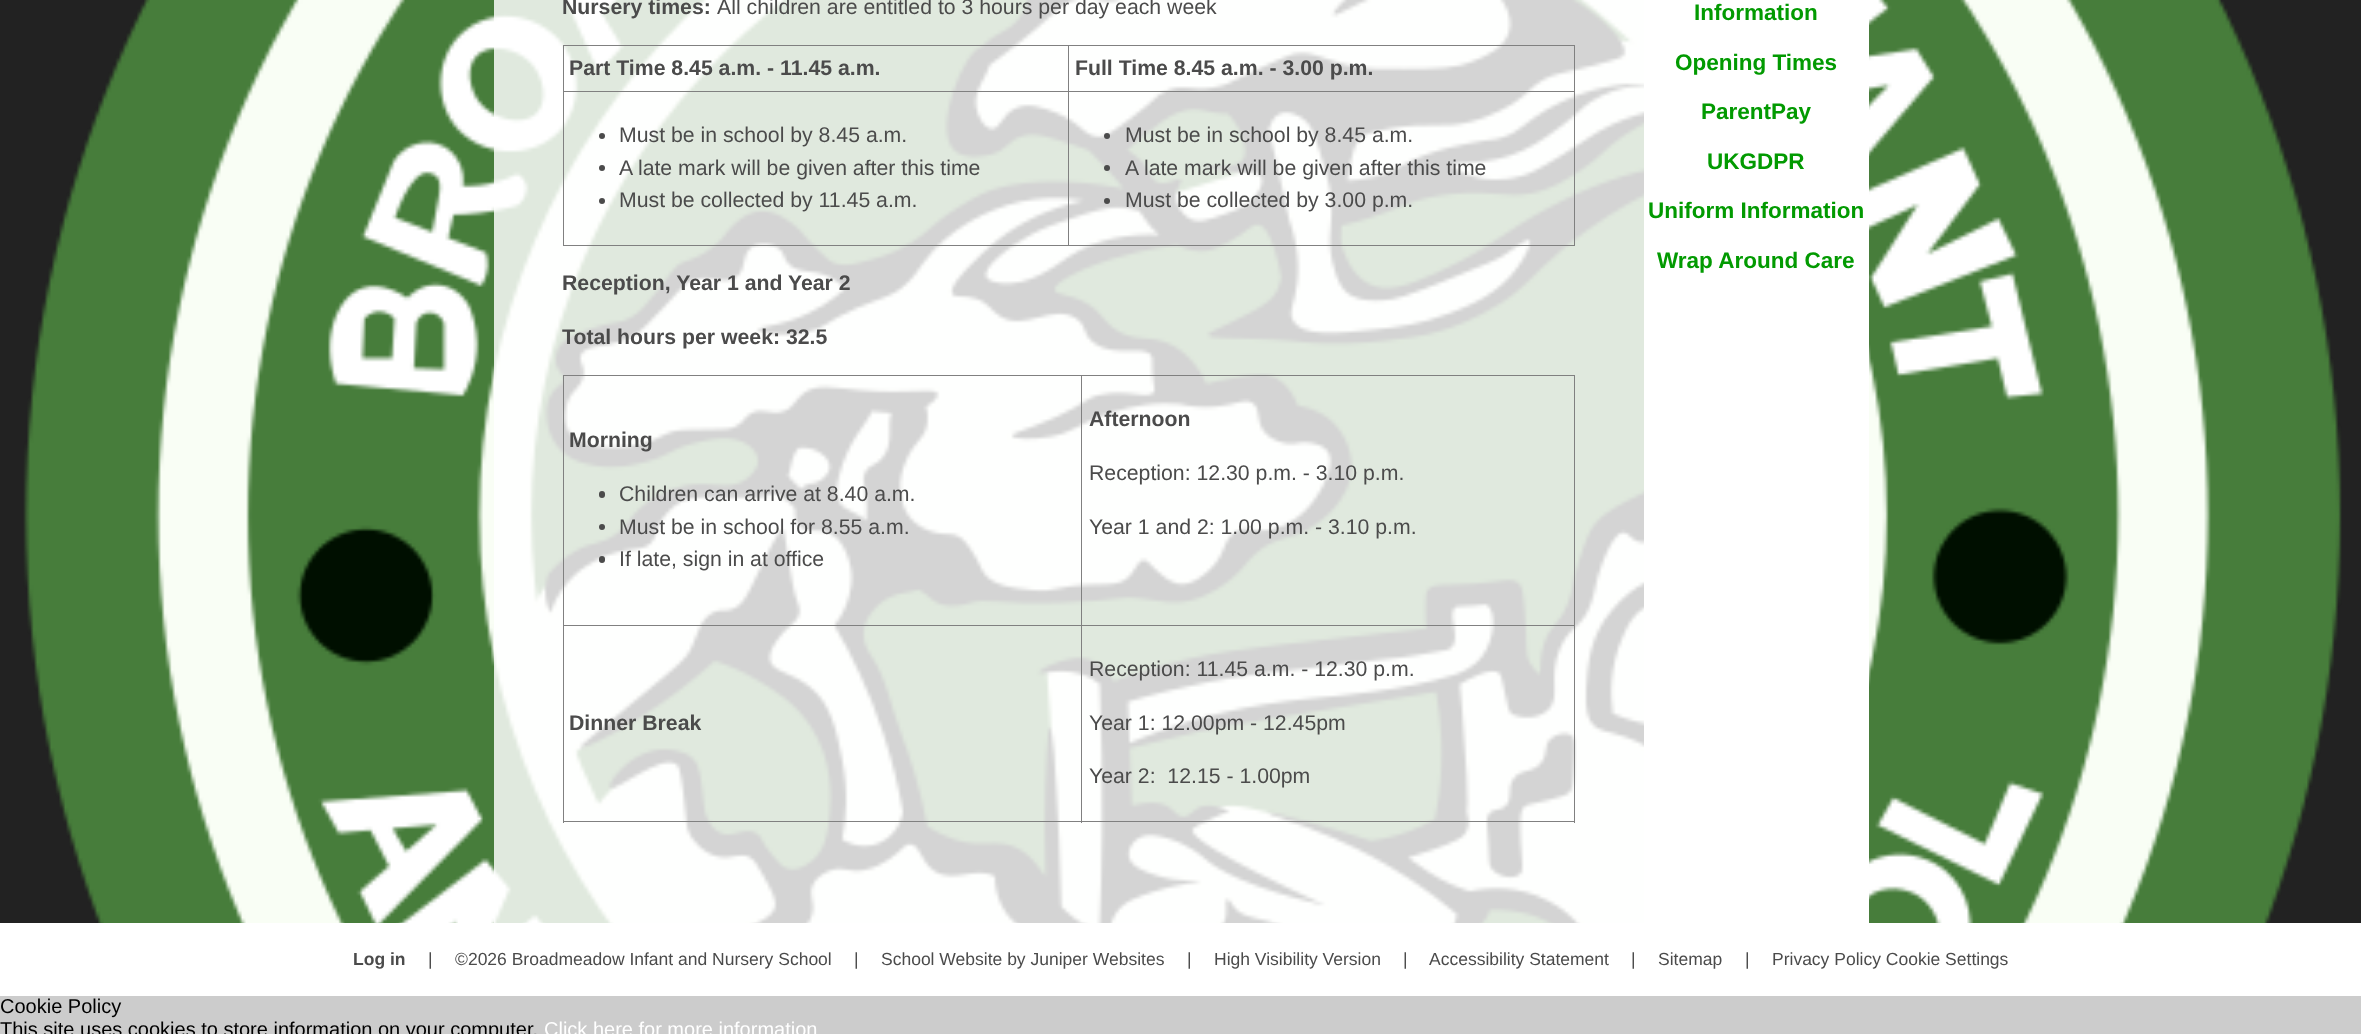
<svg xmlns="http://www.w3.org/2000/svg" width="2361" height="1034">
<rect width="100%" height="100%" fill="#ccc"/>
<rect y="923" width="2361" height="73" fill="#fff"/>
<rect width="2361" height="923" fill="#222"/>
<image x="23" y="0" width="2319" height="923" href="media/1.png"/>
<rect x="494" width="1150" height="923" fill="#ffffffd4"/>
<text x="562" y="14" style="font-family:Liberation Sans;font-size:21.25px;font-weight:bold;fill:#4b4b4b">Nursery times:</text>
<text x="717" y="14" style="font-family:Liberation Sans;font-size:21.25px;fill:#4b4b4b">All children are entitled to 3 hours per day each week</text>
<rect x="563" y="45" width="1012" height="1" fill="#808080"/>
<rect x="1574" y="45" width="1" height="201" fill="#808080"/>
<rect x="563" y="245" width="1012" height="1" fill="#808080"/>
<rect x="563" y="45" width="1" height="201" fill="#808080"/>
<text x="569" y="75" style="font-family:Liberation Sans;font-size:21.25px;font-weight:bold;fill:#4b4b4b">Part Time 8.45 a.m. - 11.45 a.m.</text>
<rect x="1068" y="91" width="507" height="1" fill="#808080"/>
<rect x="1068" y="91" width="1" height="155" fill="#808080"/>
<rect x="563" y="91" width="506" height="1" fill="#808080"/>
<rect x="1068" y="45" width="1" height="48" fill="#808080"/>
<text x="1075" y="75" style="font-family:Liberation Sans;font-size:21.25px;font-weight:bold;fill:#4b4b4b">Full Time 8.45 a.m. - 3.00 p.m.</text>
<circle cx="602" cy="136" r="3" fill="#4b4b4b"/>
<text x="619" y="142" style="font-family:Liberation Sans;font-size:21.25px;fill:#4b4b4b">Must be in school by 8.45 a.m.</text>
<circle cx="602" cy="168" r="3" fill="#4b4b4b"/>
<text x="619" y="175" style="font-family:Liberation Sans;font-size:21.25px;fill:#4b4b4b">A late mark will be given after this time</text>
<circle cx="602" cy="201" r="3" fill="#4b4b4b"/>
<text x="619" y="207" style="font-family:Liberation Sans;font-size:21.25px;fill:#4b4b4b">Must be collected by 11.45 a.m.</text>
<circle cx="1107" cy="136" r="3" fill="#4b4b4b"/>
<text x="1125" y="142" style="font-family:Liberation Sans;font-size:21.25px;fill:#4b4b4b">Must be in school by 8.45 a.m.</text>
<circle cx="1107" cy="168" r="3" fill="#4b4b4b"/>
<text x="1125" y="175" style="font-family:Liberation Sans;font-size:21.25px;fill:#4b4b4b">A late mark will be given after this time</text>
<circle cx="1107" cy="201" r="3" fill="#4b4b4b"/>
<text x="1125" y="207" style="font-family:Liberation Sans;font-size:21.25px;fill:#4b4b4b">Must be collected by 3.00 p.m.</text>
<text x="562" y="290" style="font-family:Liberation Sans;font-size:21.25px;font-weight:bold;fill:#4b4b4b">Reception, Year 1 and Year 2</text>
<text x="562" y="344" style="font-family:Liberation Sans;font-size:21.25px;font-weight:bold;fill:#4b4b4b">Total hours per week: 32.5</text>
<rect x="563" y="375" width="1012" height="1" fill="#808080"/>
<rect x="1574" y="375" width="1" height="448" fill="#808080"/>
<rect x="563" y="821" width="1012" height="1" fill="#808080"/>
<rect x="563" y="375" width="1" height="448" fill="#808080"/>
<text x="569" y="447" style="font-family:Liberation Sans;font-size:21.25px;font-weight:bold;fill:#4b4b4b">Morning</text>
<rect x="599" y="491" width="6" height="7" rx="3" fill="#4b4b4b"/>
<text x="619" y="501" style="font-family:Liberation Sans;font-size:21.25px;fill:#4b4b4b">Children can arrive at 8.40 a.m.</text>
<circle cx="602" cy="527" r="3" fill="#4b4b4b"/>
<text x="619" y="534" style="font-family:Liberation Sans;font-size:21.25px;fill:#4b4b4b">Must be in school for 8.55 a.m.</text>
<rect x="599" y="556" width="6" height="7" rx="3" fill="#4b4b4b"/>
<text x="619" y="566" style="font-family:Liberation Sans;font-size:21.25px;fill:#4b4b4b">If late, sign in at office</text>
<rect x="1081" y="625" width="494" height="1" fill="#808080"/>
<rect x="1081" y="625" width="1" height="198" fill="#808080"/>
<rect x="563" y="625" width="520" height="1" fill="#808080"/>
<rect x="1081" y="375" width="1" height="251" fill="#808080"/>
<text x="1089" y="426" style="font-family:Liberation Sans;font-size:21.25px;font-weight:bold;fill:#4b4b4b">Afternoon</text>
<text x="1089" y="480" style="font-family:Liberation Sans;font-size:21.25px;fill:#4b4b4b">Reception: 12.30 p.m. - 3.10 p.m.</text>
<text x="1089" y="534" style="font-family:Liberation Sans;font-size:21.25px;fill:#4b4b4b">Year 1 and 2: 1.00 p.m. - 3.10 p.m.</text>
<text x="569" y="730" style="font-family:Liberation Sans;font-size:21.25px;font-weight:bold;fill:#4b4b4b">Dinner Break</text>
<text x="1089" y="676" style="font-family:Liberation Sans;font-size:21.25px;fill:#4b4b4b">Reception: 11.45 a.m. - 12.30 p.m.</text>
<text x="1089" y="730" style="font-family:Liberation Sans;font-size:21.25px;fill:#4b4b4b">Year 1: 12.00pm - 12.45pm</text>
<text x="1089" y="783" style="font-family:Liberation Sans;font-size:21.25px;fill:#4b4b4b" xml:space="preserve">Year 2:  12.15 - 1.00pm</text>
<rect x="1644" width="225" height="923" fill="#fff"/>
<text x="1694" y="20" style="font-family:Liberation Sans;font-size:22.5px;font-weight:bold;fill:#029a01">Information</text>
<text x="1675" y="70" style="font-family:Liberation Sans;font-size:22.5px;font-weight:bold;fill:#029a01">Opening Times</text>
<text x="1701" y="119" style="font-family:Liberation Sans;font-size:22.5px;font-weight:bold;fill:#029a01">ParentPay</text>
<text x="1707" y="169" style="font-family:Liberation Sans;font-size:22.5px;font-weight:bold;fill:#029a01">UKGDPR</text>
<text x="1648" y="218" style="font-family:Liberation Sans;font-size:22.5px;font-weight:bold;fill:#029a01">Uniform Information</text>
<text x="1657" y="268" style="font-family:Liberation Sans;font-size:22.5px;font-weight:bold;fill:#029a01">Wrap Around Care</text>
<text x="353" y="965" style="font-family:Liberation Sans;font-size:17.5px;font-weight:bold;fill:#4b4b4b">Log in</text>
<text x="428" y="965" style="font-family:Liberation Sans;font-size:17.5px;fill:#4b4b4b">|</text>
<text x="455" y="965" style="font-family:Liberation Sans;font-size:17.5px;fill:#4b4b4b">©2026 Broadmeadow Infant and Nursery School</text>
<text x="854" y="965" style="font-family:Liberation Sans;font-size:17.5px;fill:#4b4b4b">|</text>
<text x="881" y="965" style="font-family:Liberation Sans;font-size:17.5px;fill:#4b4b4b">School Website by Juniper Websites</text>
<text x="1187" y="965" style="font-family:Liberation Sans;font-size:17.5px;fill:#4b4b4b">|</text>
<text x="1214" y="965" style="font-family:Liberation Sans;font-size:17.5px;fill:#4b4b4b">High Visibility Version</text>
<text x="1403" y="965" style="font-family:Liberation Sans;font-size:17.5px;fill:#4b4b4b">|</text>
<text x="1429" y="965" style="font-family:Liberation Sans;font-size:17.5px;fill:#4b4b4b">Accessibility Statement</text>
<text x="1631" y="965" style="font-family:Liberation Sans;font-size:17.5px;fill:#4b4b4b">|</text>
<text x="1658" y="965" style="font-family:Liberation Sans;font-size:17.5px;fill:#4b4b4b">Sitemap</text>
<text x="1745" y="965" style="font-family:Liberation Sans;font-size:17.5px;fill:#4b4b4b">|</text>
<text x="1772" y="965" style="font-family:Liberation Sans;font-size:17.5px;fill:#4b4b4b">Privacy Policy Cookie Settings</text>
<text x="0" y="1013" style="font-family:Liberation Sans;font-size:20px;fill:#000">Cookie Policy</text>
<text x="0" y="1036" style="font-family:Liberation Sans;font-size:20px;fill:#000">This site uses cookies to store information on your computer.</text>
<text x="544" y="1036" style="font-family:Liberation Sans;font-size:20px;fill:#fff">Click here for more information</text>
</svg>
